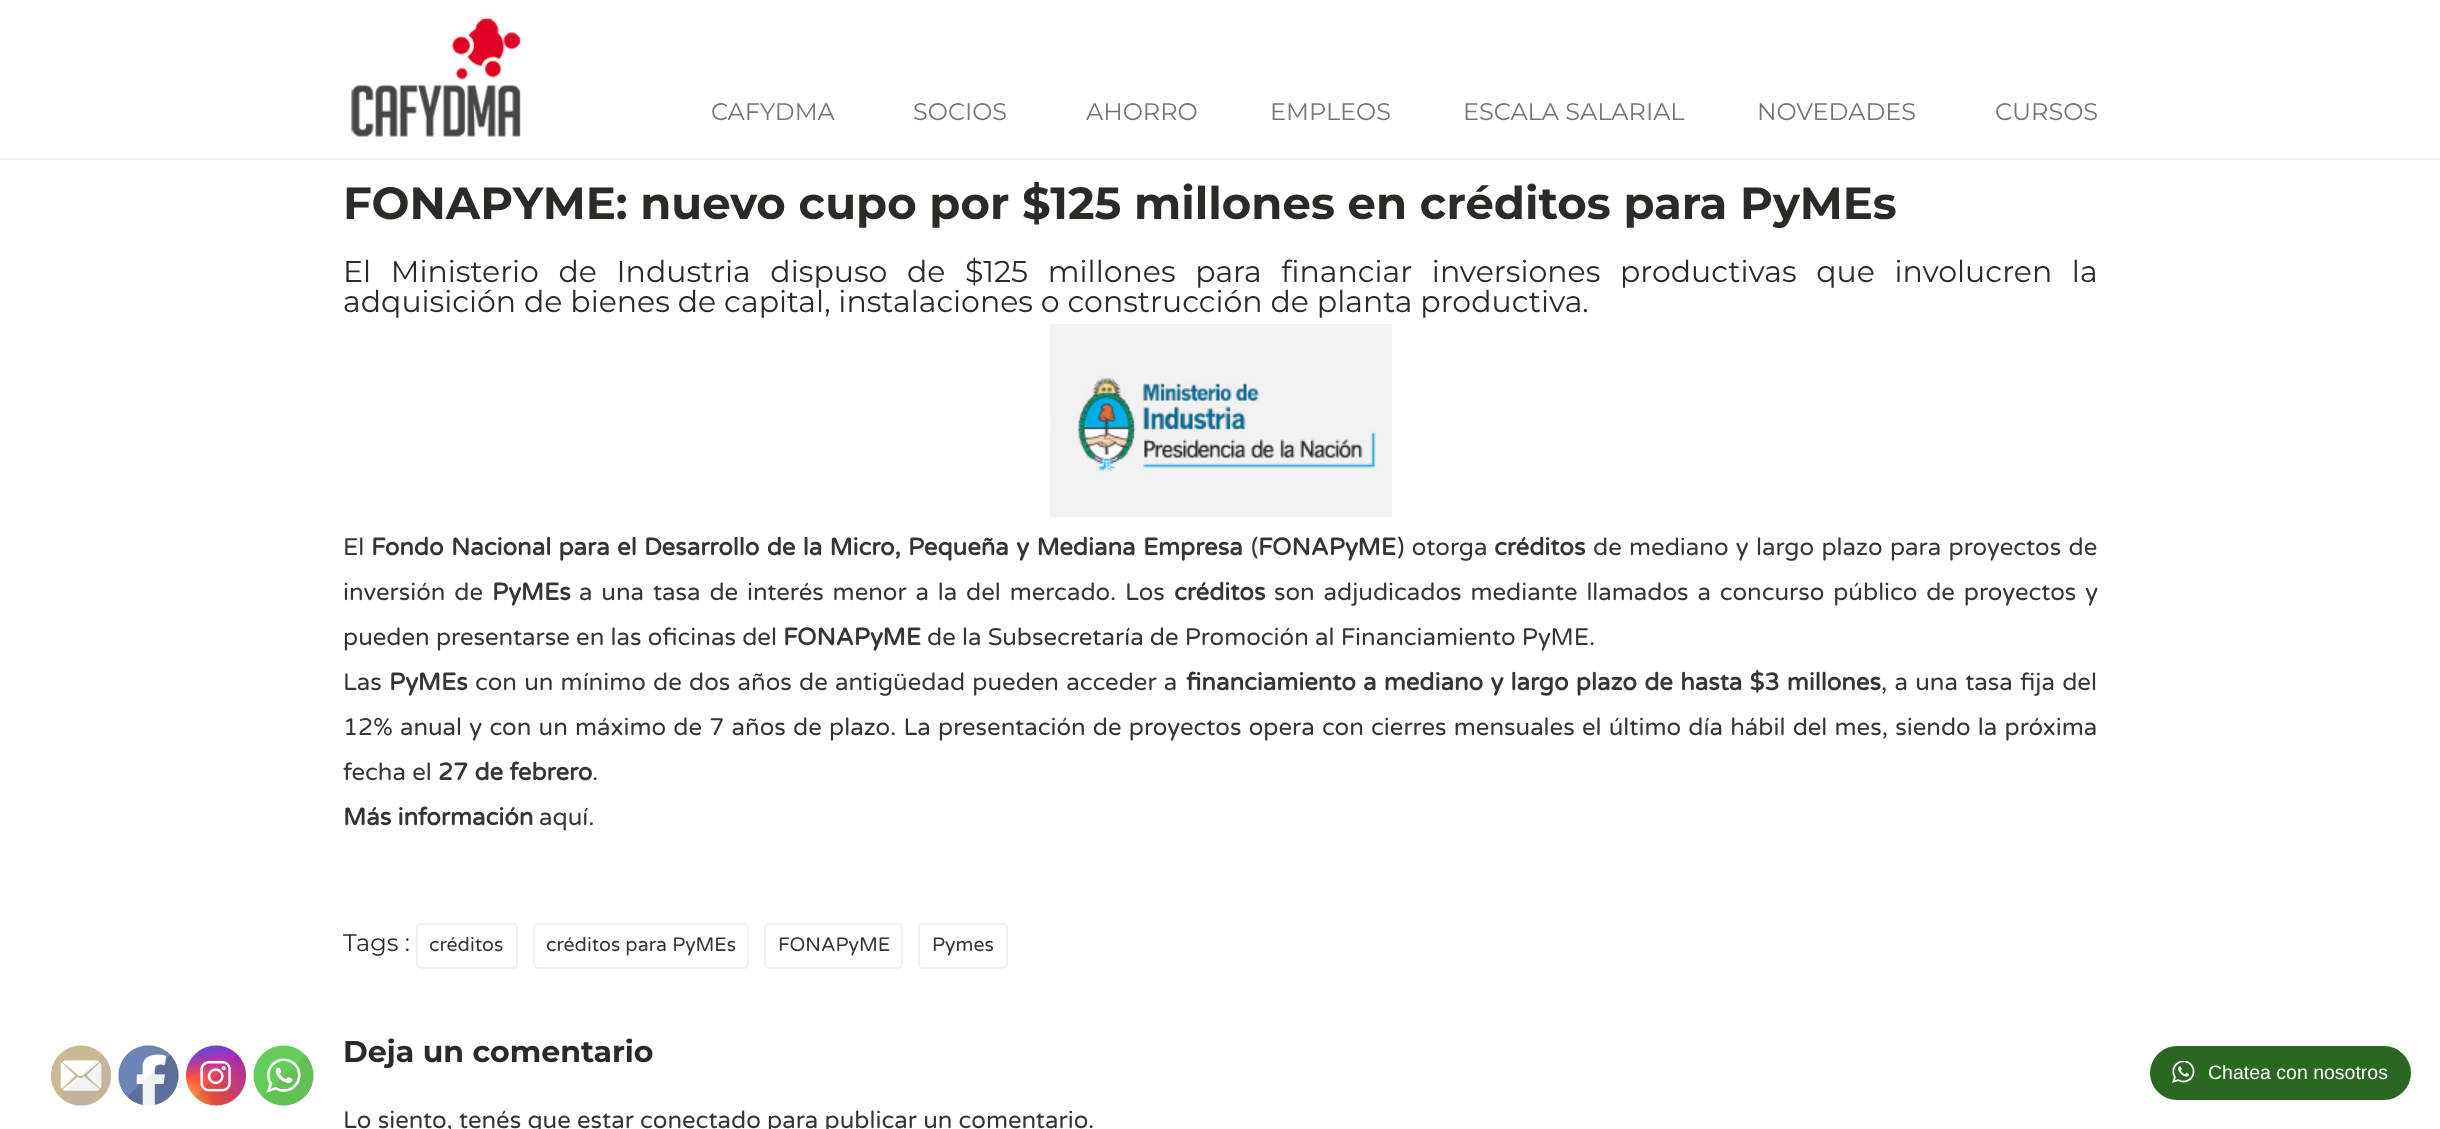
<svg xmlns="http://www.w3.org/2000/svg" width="2440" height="1129">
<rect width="100%" height="100%" fill="#fff"/>
<image x="51" y="1045" width="60" height="61" href="media/1.png"/>
<image x="118" y="1045" width="61" height="61" href="media/2.png"/>
<image x="186" y="1045" width="60" height="61" href="media/3.png"/>
<image x="253" y="1045" width="61" height="61" href="media/4.png"/>
<rect y="158" width="2440" height="2" fill="#f1f1f1"/>
<image x="351" y="18" width="170" height="119" href="media/5.png"/>
<text x="711" y="120" style="font-family:Montserrat;font-size:24px;fill:#727475">CAFYDMA</text>
<text x="913" y="120" style="font-family:Montserrat;font-size:24px;fill:#727475">SOCIOS</text>
<text x="1086" y="120" style="font-family:Montserrat;font-size:24px;fill:#727475">AHORRO</text>
<text x="1270" y="120" style="font-family:Montserrat;font-size:24px;fill:#727475">EMPLEOS</text>
<text x="1463" y="120" style="font-family:Montserrat;font-size:24px;fill:#727475">ESCALA SALARIAL</text>
<text x="1757" y="120" style="font-family:Montserrat;font-size:24px;fill:#727475">NOVEDADES</text>
<text x="1995" y="120" style="font-family:Montserrat;font-size:24px;fill:#727475">CURSOS</text>
<text x="343" y="219" style="font-family:Montserrat;font-size:45px;font-weight:bold;fill:#2b2a26">FONAPYME: nuevo cupo por $125 millones en créditos para PyMEs</text>
<text x="343" y="282" word-spacing="11.75" style="font-family:Montserrat;font-size:30px;fill:#2b2a26">El Ministerio de Industria dispuso de $125 millones para financiar inversiones productivas que involucren la</text>
<text x="343" y="312" style="font-family:Montserrat;font-size:30px;fill:#2b2a26">adquisición de bienes de capital, instalaciones o construcción de planta productiva.</text>
<image x="1050" y="324" width="342" height="194" href="media/6.png"/>
<text x="343" y="555" style="font-family:Varela Round;font-size:24px;fill:#353535">El</text>
<text x="371" y="555" word-spacing="1.1" style="font-family:Varela Round;font-size:24px;font-weight:bold;fill:#353535">Fondo Nacional para el Desarrollo de la Micro, Pequeña y Mediana Empresa</text>
<text x="1251" y="555" style="font-family:Varela Round;font-size:24px;fill:#353535">(</text>
<text x="1258" y="555" style="font-family:Varela Round;font-size:24px;font-weight:bold;fill:#353535">FONAPyME</text>
<text x="1397" y="555" word-spacing="1.1" style="font-family:Varela Round;font-size:24px;fill:#353535">) otorga</text>
<text x="1494" y="555" style="font-family:Varela Round;font-size:24px;font-weight:bold;fill:#353535">créditos</text>
<text x="1593" y="555" word-spacing="1.1" style="font-family:Varela Round;font-size:24px;fill:#353535">de mediano y largo plazo para proyectos de</text>
<text x="343" y="600" word-spacing="2.6" style="font-family:Varela Round;font-size:24px;fill:#353535">inversión de</text>
<text x="492" y="600" style="font-family:Varela Round;font-size:24px;font-weight:bold;fill:#353535">PyMEs</text>
<text x="579" y="600" word-spacing="2.6" style="font-family:Varela Round;font-size:24px;fill:#353535">a una tasa de interés menor a la del mercado. Los</text>
<text x="1174" y="600" style="font-family:Varela Round;font-size:24px;font-weight:bold;fill:#353535">créditos</text>
<text x="1274" y="600" word-spacing="2.6" style="font-family:Varela Round;font-size:24px;fill:#353535">son adjudicados mediante llamados a concurso público de proyectos y</text>
<text x="343" y="645" style="font-family:Varela Round;font-size:24px;fill:#353535">pueden presentarse en las oficinas del</text>
<text x="783" y="645" style="font-family:Varela Round;font-size:24px;font-weight:bold;fill:#353535">FONAPyME</text>
<text x="927" y="645" style="font-family:Varela Round;font-size:24px;fill:#353535">de la Subsecretaría de Promoción al Financiamiento PyME.</text>
<text x="343" y="690" style="font-family:Varela Round;font-size:24px;fill:#353535">Las</text>
<text x="389" y="690" style="font-family:Varela Round;font-size:24px;font-weight:bold;fill:#353535">PyMEs</text>
<text x="475" y="690" word-spacing="1" style="font-family:Varela Round;font-size:24px;fill:#353535">con un mínimo de dos años de antigüedad pueden acceder a</text>
<text x="1186" y="690" word-spacing="1" style="font-family:Varela Round;font-size:24px;font-weight:bold;fill:#353535">financiamiento a mediano y largo plazo de hasta $3 millones</text>
<text x="1881" y="690" word-spacing="1" style="font-family:Varela Round;font-size:24px;fill:#353535">, a una tasa fija del</text>
<text x="343" y="735" word-spacing="1" style="font-family:Varela Round;font-size:24px;fill:#353535">12% anual y con un máximo de 7 años de plazo. La presentación de proyectos opera con cierres mensuales el último día hábil del mes, siendo la próxima</text>
<text x="343" y="780" style="font-family:Varela Round;font-size:24px;fill:#353535">fecha el</text>
<text x="438" y="780" style="font-family:Varela Round;font-size:24px;font-weight:bold;fill:#353535">27 de febrero</text>
<text x="592" y="780" style="font-family:Varela Round;font-size:24px;fill:#353535">.</text>
<text x="343" y="825" style="font-family:Varela Round;font-size:24px;font-weight:bold;fill:#353535">Más información</text>
<text x="539" y="825" style="font-family:Varela Round;font-size:24px;fill:#353535">aquí.</text>
<text x="343" y="951" style="font-family:Montserrat;font-size:24px;fill:#2b2a26">Tags :</text>
<rect x="417" y="924" width="100" height="44" rx="4" fill="none" stroke="#f1f1f1" stroke-width="2"/>
<text x="429" y="951" style="font-family:Varela Round;font-size:19.5px;fill:#353535">créditos</text>
<rect x="534" y="924" width="214" height="44" rx="4" fill="none" stroke="#f1f1f1" stroke-width="2"/>
<text x="546" y="951" style="font-family:Varela Round;font-size:19.5px;fill:#353535">créditos para PyMEs</text>
<rect x="765" y="924" width="137" height="44" rx="4" fill="none" stroke="#f1f1f1" stroke-width="2"/>
<text x="778" y="951" style="font-family:Varela Round;font-size:19.5px;fill:#353535">FONAPyME</text>
<rect x="919" y="924" width="88" height="44" rx="4" fill="none" stroke="#f1f1f1" stroke-width="2"/>
<text x="932" y="951" style="font-family:Varela Round;font-size:19.5px;fill:#353535">Pymes</text>
<text x="343" y="1062" style="font-family:Montserrat;font-size:30px;font-weight:bold;fill:#2b2a26">Deja un comentario</text>
<text x="343" y="1128" style="font-family:Varela Round;font-size:24px;fill:#353535">Lo siento, tenés que estar conectado para publicar un comentario.</text>
<rect x="2150" y="1046" width="261" height="54" rx="27" fill="#2a6822"/>
<image x="2172" y="1061" width="23" height="22" href="media/7.png"/>
<text x="2208" y="1079" style="font-family:Liberation Sans;font-size:19.5px;fill:#fff">Chatea con nosotros</text>
</svg>
